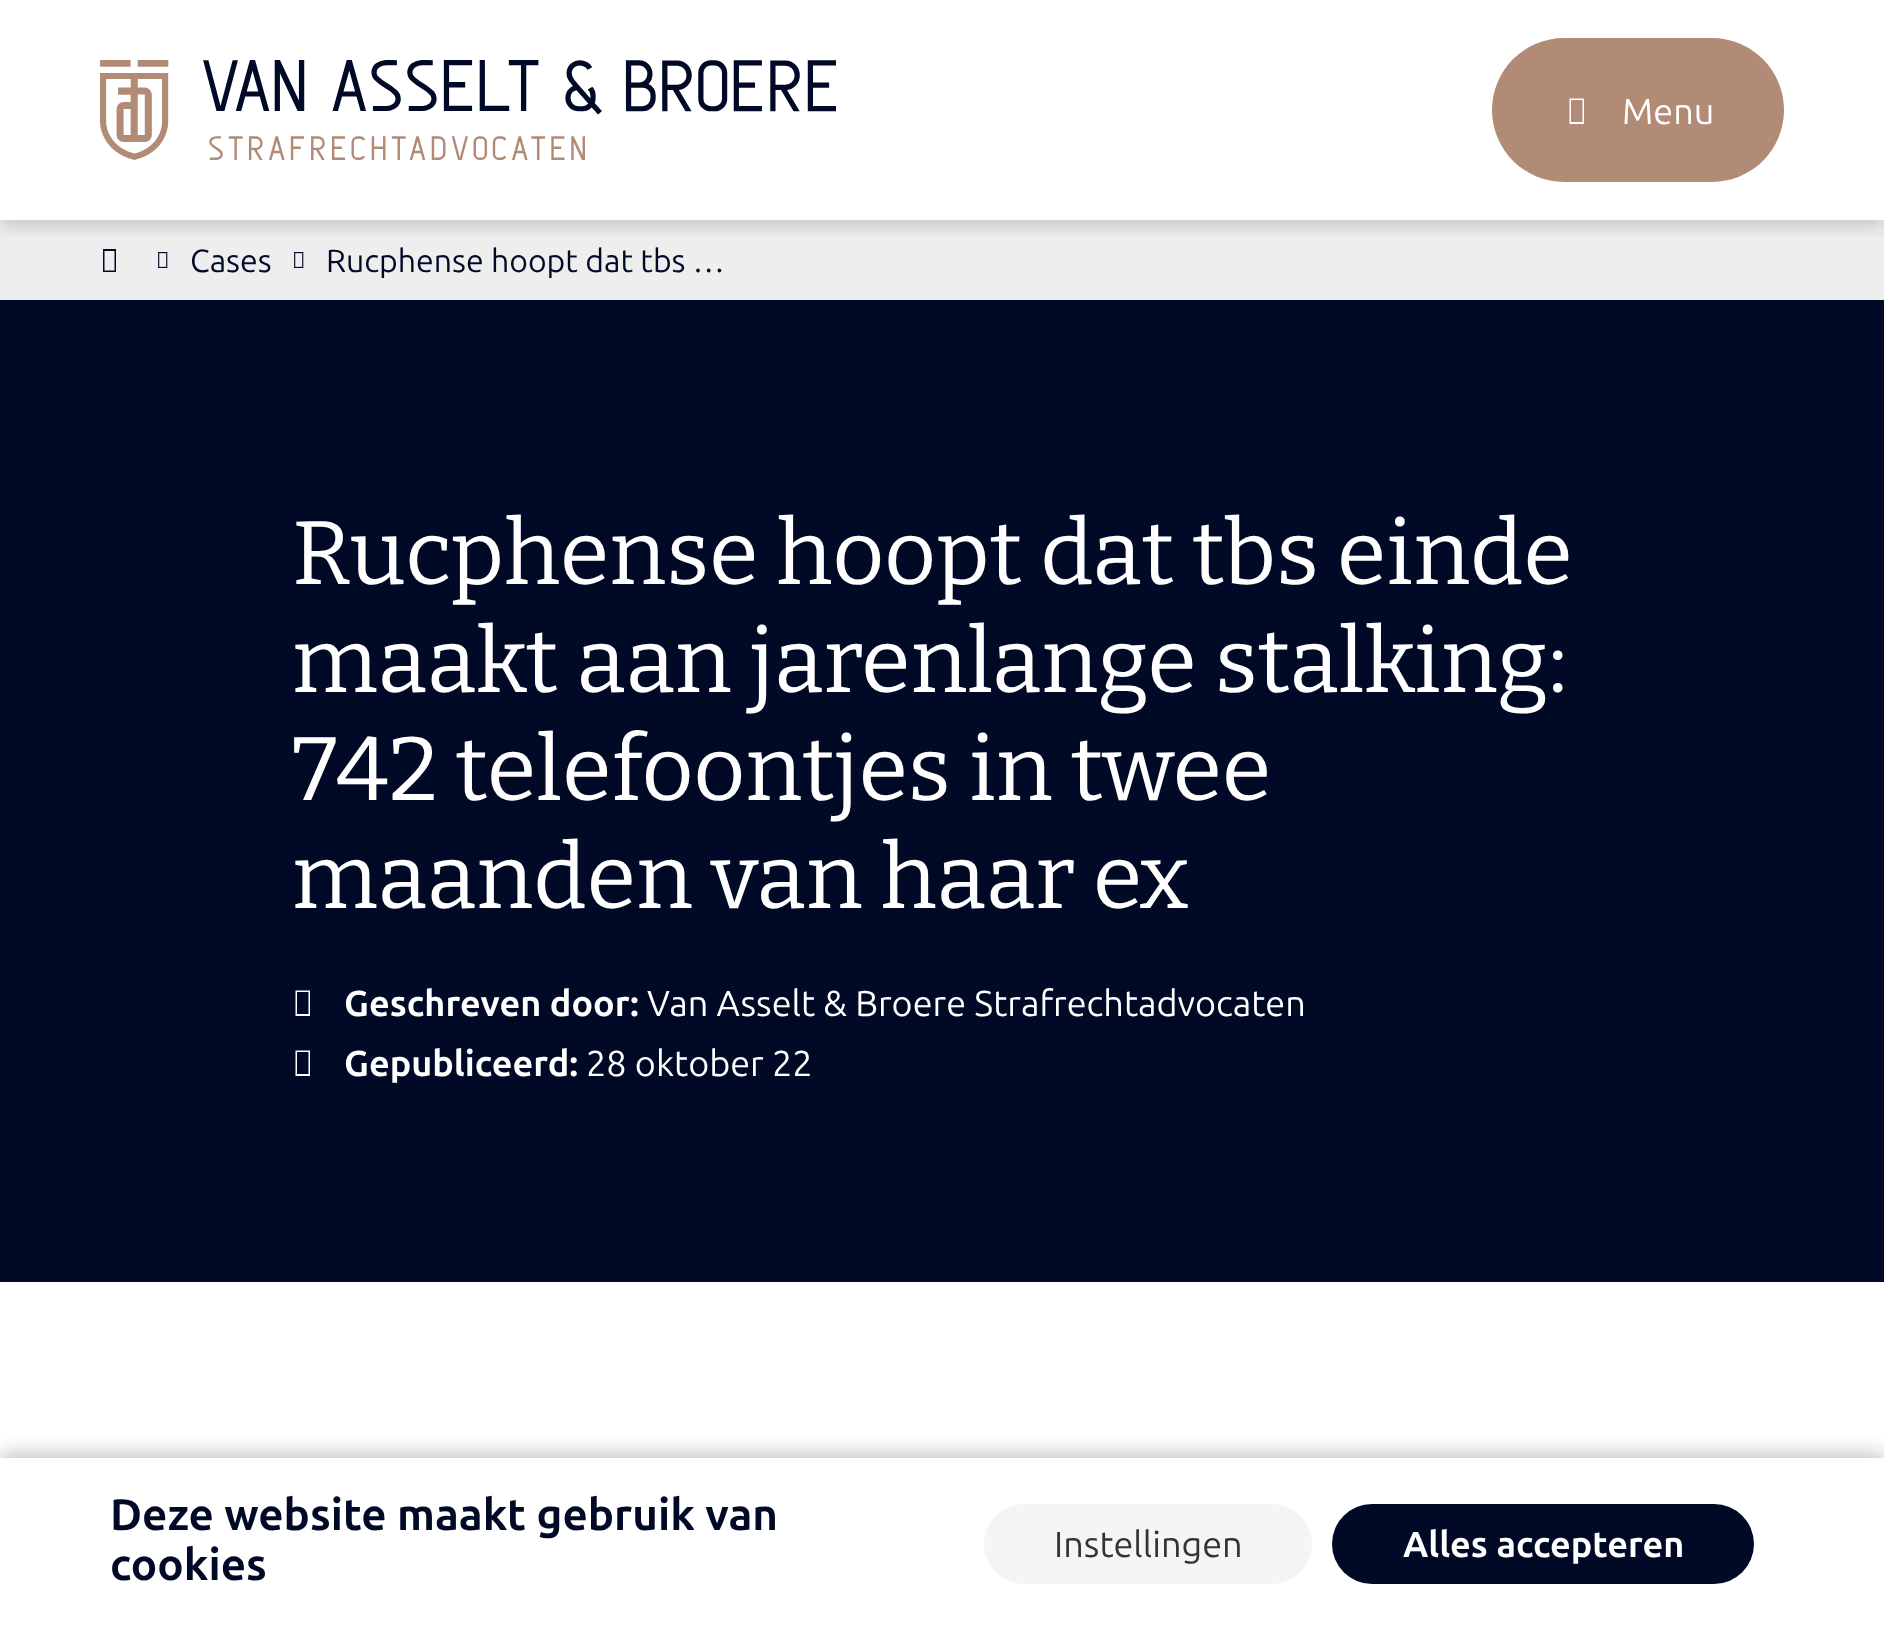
<svg xmlns="http://www.w3.org/2000/svg" width="1884" height="1627">
<defs>
<clipPath id="clip1"><rect x="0" y="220" width="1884" height="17"/></clipPath>
</defs>
<rect width="100%" height="100%" fill="#fff"/>
<rect y="220" width="1884" height="80" fill="#eee"/>
<path d="M103 272v-23h13v23zm1.5-1.5h10v-19.5h-10z" fill="#000926"/>
<image x="158" y="252" width="10" height="16" href="media/2.png"/>
<image x="294" y="252" width="10" height="16" href="media/2.png"/>
<g clip-path="url(#clip1)">
<rect y="4" width="1884" height="220" fill="#00000033" filter="blur(10px)"/>
</g>
<image x="100" y="60" width="736" height="100" href="media/1.png"/>
<rect x="1492" y="38" width="292" height="144" rx="72" fill="#b28b77"/>
<path d="M1569.5 124v-25.5h14.5v25.5zm1.5-2h11.5v-22h-11.5z" fill="#fff"/>
<text x="1622" y="124" style="font-family:Ubuntu;font-size:36px;fill:#fff">Menu</text>
<text x="190" y="272" style="font-family:Ubuntu;font-size:32px;fill:#000926">Cases</text>
<text x="326" y="272" style="font-family:Ubuntu;font-size:32px;fill:#000926">Rucphense hoopt dat tbs …</text>
<rect y="300" width="1884" height="982" fill="#000926"/>
<text x="292" y="584" style="font-family:Bitter;font-size:90px;fill:#fff">Rucphense hoopt dat tbs einde</text>
<text x="292" y="692" style="font-family:Bitter;font-size:90px;fill:#fff">maakt aan jarenlange stalking:</text>
<text x="292" y="800" style="font-family:Bitter;font-size:90px;fill:#fff">742 telefoontjes in twee</text>
<text x="292" y="908" style="font-family:Bitter;font-size:90px;fill:#fff">maanden van haar ex</text>
<path d="M295.5 1016v-25.5h14.5v25.5zm1.5-2h11.5v-22h-11.5z" fill="#fff"/>
<text x="344" y="1016" style="font-family:Ubuntu;font-size:36px;font-weight:bold;fill:#fff">Geschreven door:</text>
<text x="647" y="1016" style="font-family:Ubuntu;font-size:36px;fill:#fff">Van Asselt &amp; Broere Strafrechtadvocaten</text>
<path d="M295.5 1076v-25.5h14.5v25.5zm1.5-2h11.5v-22h-11.5z" fill="#fff"/>
<text x="344" y="1076" style="font-family:Ubuntu;font-size:36px;font-weight:bold;fill:#fff">Gepubliceerd:</text>
<text x="586" y="1076" style="font-family:Ubuntu;font-size:36px;fill:#fff">28 oktober 22</text>
<rect y="1454" width="1884" height="170" fill="#00000040" filter="blur(10px)"/>
<rect y="1458" width="1884" height="169" fill="#fff"/>
<text x="110" y="1530" style="font-family:Ubuntu;font-size:44px;font-weight:bold;fill:#000926">Deze website maakt gebruik van</text>
<text x="110" y="1580" style="font-family:Ubuntu;font-size:44px;font-weight:bold;fill:#000926">cookies</text>
<rect x="984" y="1504" width="328" height="80" rx="40" fill="#f5f5f5"/>
<text x="1054" y="1557" style="font-family:Ubuntu;font-size:36px;fill:#333">Instellingen</text>
<rect x="1332" y="1504" width="422" height="80" rx="40" fill="#000926"/>
<text x="1403" y="1557" style="font-family:Ubuntu;font-size:36px;font-weight:bold;fill:#fff">Alles accepteren</text>
</svg>
